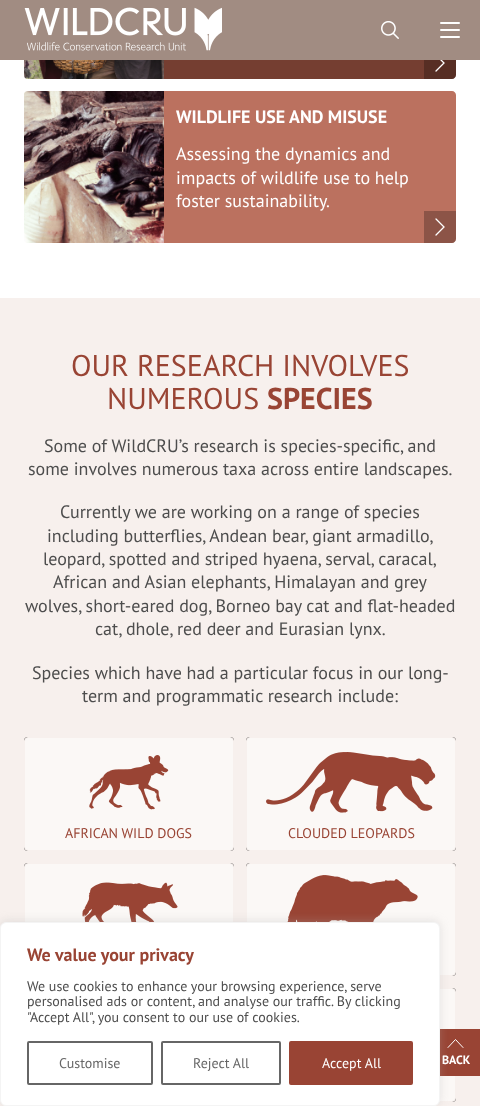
<svg xmlns="http://www.w3.org/2000/svg" width="480" height="1106">
<rect width="100%" height="100%" fill="#fff"/>
<path d="M164-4h288c2 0 4 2 4 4v75c0 2-2 4-4 4h-288z" fill="#753e31"/>
<path d="M424 47h32v28c0 2-2 4-4 4h-28z" fill="#00000040"/>
<path d="M436 71l8-8l-8-8" fill="none" stroke="#fff" stroke-width="1.3" stroke-linecap="round"/>
<rect width="480" height="60" fill="#a18c82"/>
<image x="24" y="7" width="198" height="44" href="media/1.png"/>
<image x="381" y="21" width="18" height="18" href="media/2.png"/>
<rect x="440" y="29" width="20" height="2" rx="1" fill="#fff"/>
<rect x="440" y="22" width="20" height="2" rx="1" fill="#fff"/>
<rect x="440" y="36" width="20" height="2" rx="1" fill="#fff"/>
<image x="24" y="60" width="140" height="19" href="media/3.png"/>
<image x="24" y="91" width="140" height="152" href="media/4.png"/>
<path d="M164 91h288c2 0 4 2 4 4v144c0 2-2 4-4 4h-288z" fill="#bb715f"/>
<text x="176" y="123" style="font-family:PT Sans;font-size:18px;font-weight:bold;fill:#fff">WILDLIFE USE AND MISUSE</text>
<text x="176" y="160" style="font-family:PT Sans;font-size:18px;fill:#fff">Assessing the dynamics and</text>
<text x="176" y="184" style="font-family:PT Sans;font-size:18px;fill:#fff">impacts of wildlife use to help</text>
<text x="176" y="207" style="font-family:PT Sans;font-size:18px;fill:#fff">foster sustainability.</text>
<path d="M424 211h32v28c0 2-2 4-4 4h-28z" fill="#00000040"/>
<path d="M436 235l8-8l-8-8" fill="none" stroke="#fff" stroke-width="1.3" stroke-linecap="round"/>
<rect y="298" width="480" height="808" fill="#f7f0ed"/>
<text x="71" y="376" style="font-family:PT Sans;font-size:30px;fill:#994434">OUR RESEARCH INVOLVES</text>
<text x="107" y="409" style="font-family:PT Sans;font-size:30px;fill:#994434">NUMEROUS</text>
<text x="267" y="409" style="font-family:PT Sans;font-size:30px;font-weight:bold;fill:#994434">SPECIES</text>
<text x="44" y="452" style="font-family:PT Sans;font-size:18px;fill:#4d4d4d">Some of WildCRU’s research is species-specific, and</text>
<text x="28" y="475" style="font-family:PT Sans;font-size:18px;fill:#4d4d4d">some involves numerous taxa across entire landscapes.</text>
<text x="60" y="518" style="font-family:PT Sans;font-size:18px;fill:#4d4d4d">Currently we are working on a range of species</text>
<text x="47" y="542" style="font-family:PT Sans;font-size:18px;fill:#4d4d4d">including butterflies, Andean bear, giant armadillo,</text>
<text x="43" y="565" style="font-family:PT Sans;font-size:18px;fill:#4d4d4d">leopard, spotted and striped hyaena, serval, caracal,</text>
<text x="53" y="588" style="font-family:PT Sans;font-size:18px;fill:#4d4d4d">African and Asian elephants, Himalayan and grey</text>
<text x="25" y="612" style="font-family:PT Sans;font-size:18px;fill:#4d4d4d">wolves, short-eared dog, Borneo bay cat and flat-headed</text>
<text x="95" y="635" style="font-family:PT Sans;font-size:18px;fill:#4d4d4d">cat, dhole, red deer and Eurasian lynx.</text>
<text x="32" y="679" style="font-family:PT Sans;font-size:18px;fill:#4d4d4d">Species which have had a particular focus in our long-</text>
<text x="82" y="702" style="font-family:PT Sans;font-size:18px;fill:#4d4d4d">term and programmatic research include:</text>
<rect x="24" y="737" width="210" height="114" rx="4" fill="#000000bf" filter="blur(0.5px)"/>
<rect x="24.5" y="737.5" width="209" height="113" rx="3.5" fill="#fbf8f6" stroke="#f7f0ed"/>
<image x="89" y="755" width="80" height="55" href="media/5.png"/>
<text x="65" y="838" style="font-family:PT Sans;font-size:14px;fill:#994434">AFRICAN WILD DOGS</text>
<rect x="246" y="737" width="210" height="114" rx="4" fill="#000000bf" filter="blur(0.5px)"/>
<rect x="246.5" y="737.5" width="209" height="113" rx="3.5" fill="#fbf8f6" stroke="#f7f0ed"/>
<image x="266" y="752" width="170" height="61" href="media/6.png"/>
<text x="288" y="838" style="font-family:PT Sans;font-size:14px;fill:#994434">CLOUDED LEOPARDS</text>
<rect x="24" y="863" width="210" height="113" rx="4" fill="#000000bf" filter="blur(0.5px)"/>
<rect x="24.5" y="863.5" width="209" height="112" rx="3.5" fill="#fbf8f6" stroke="#f7f0ed"/>
<image x="82" y="882" width="96" height="40" href="media/7.png"/>
<rect x="246" y="863" width="210" height="113" rx="4" fill="#000000bf" filter="blur(0.5px)"/>
<rect x="246.5" y="863.5" width="209" height="112" rx="3.5" fill="#fbf8f6" stroke="#f7f0ed"/>
<image x="287" y="875" width="131" height="47" href="media/8.png"/>
<rect x="246" y="988" width="210" height="114" rx="4" fill="#000000bf" filter="blur(0.5px)"/>
<rect x="246.5" y="988.5" width="209" height="113" rx="3.5" fill="#fbf8f6" stroke="#f7f0ed"/>
<rect x="440" y="1029" width="40" height="47" fill="#994434"/>
<path d="M463 1047.5l-7.5-8l-7.5 8" fill="none" stroke="#fff" stroke-linecap="round"/>
<rect y="921" width="440" height="184" rx="6" fill="#acabab4d" filter="blur(5px)"/>
<rect x="0.5" y="922.5" width="439" height="183" rx="5.5" fill="#fff" stroke="#f4f4f4"/>
<text x="27" y="961" style="font-family:PT Sans;font-size:18px;font-weight:bold;fill:#994434">We value your privacy</text>
<text x="27" y="991" style="font-family:PT Sans;font-size:14px;fill:#4d4d4d">We use cookies to enhance your browsing experience, serve</text>
<text x="27" y="1006" style="font-family:PT Sans;font-size:14px;fill:#4d4d4d">personalised ads or content, and analyse our traffic. By clicking</text>
<text x="27" y="1022" style="font-family:PT Sans;font-size:14px;fill:#4d4d4d">"Accept All", you consent to our use of cookies.</text>
<rect x="28" y="1042" width="124" height="42" rx="1" fill="none" stroke="#666" stroke-width="2"/>
<text x="59" y="1068" style="font-family:PT Sans;font-size:14px;fill:#666">Customise</text>
<rect x="162" y="1042" width="118" height="42" rx="1" fill="none" stroke="#666" stroke-width="2"/>
<text x="193" y="1068" style="font-family:PT Sans;font-size:14px;fill:#666">Reject All</text>
<rect x="290" y="1042" width="122" height="42" rx="1" fill="#994434" stroke="#994434" stroke-width="2"/>
<text x="322" y="1068" style="font-family:PT Sans;font-size:14px;fill:#fff">Accept All</text>
<text x="442" y="1064" style="font-family:PT Sans;font-size:12px;font-weight:bold;fill:#fff">BACK</text>
</svg>
